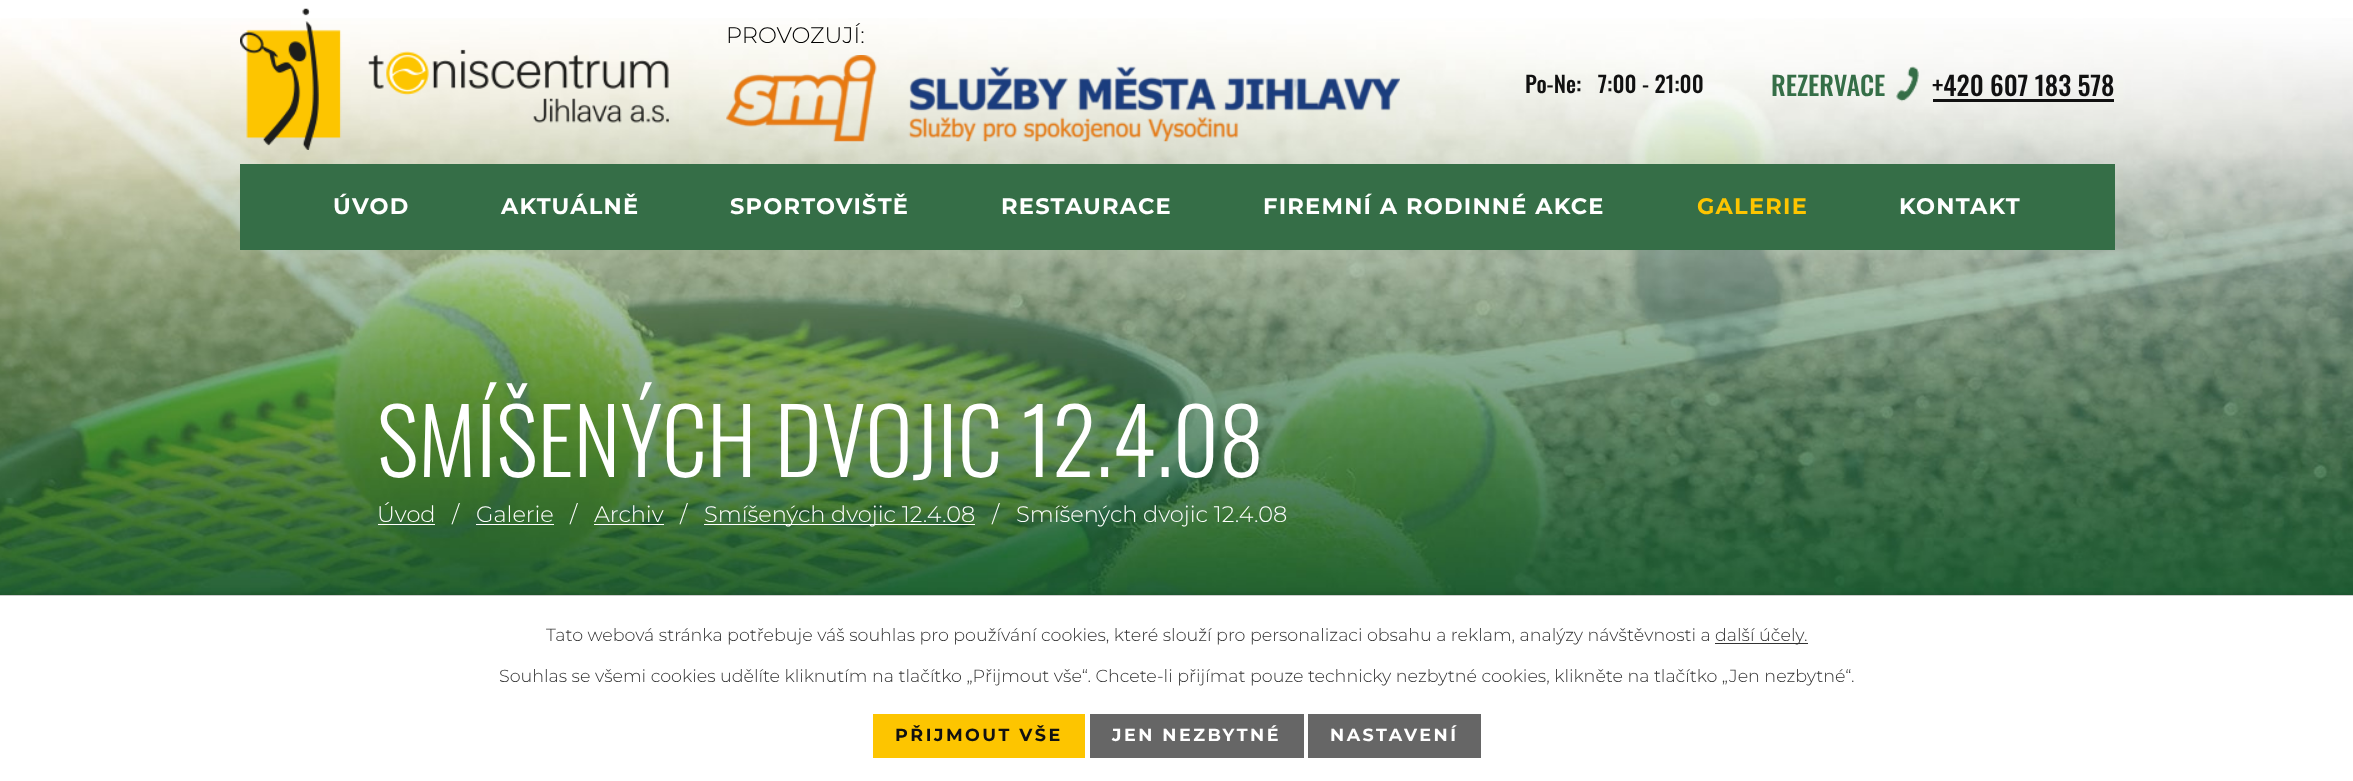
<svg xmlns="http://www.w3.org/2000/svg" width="2353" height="781">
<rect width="100%" height="100%" fill="#fff"/>
<image x="0" y="18" width="2353" height="577" href="media/4.png"/>
<image x="240" y="8" width="429" height="142" href="media/1.png"/>
<text x="726" y="43" style="font-family:Montserrat;font-size:22.5px;font-weight:300;fill:#000">PROVOZUJÍ:</text>
<image x="726" y="55" width="674" height="87" href="media/2.png"/>
<text x="1525" y="93" style="font-family:Oswald;font-size:22.5px;font-weight:500;fill:#111" xml:space="preserve">Po-Ne:   7:00 - 21:00</text>
<text x="1771" y="96" style="font-family:Oswald;font-size:26.25px;font-weight:500;fill:#356e47">REZERVACE</text>
<image x="1896" y="66" width="23" height="36" href="media/3.png"/>
<text x="1932" y="96" style="font-family:Oswald;font-size:26.25px;font-weight:500;fill:#111">+420 607 183 578</text>
<rect x="1933" y="99" width="181" height="3" fill="#111"/>
<text x="377" y="477" style="font-family:Oswald;font-size:90px;font-weight:300;fill:#fff">SMÍŠENÝCH DVOJIC 12.4.08</text>
<text x="377" y="522" style="font-family:Montserrat;font-size:22.5px;font-weight:300;fill:#fff">Úvod</text>
<rect x="378" y="524" width="57" height="1" fill="#fff"/>
<text x="452" y="522" style="font-family:Montserrat;font-size:22.5px;font-weight:300;fill:#fff">/</text>
<text x="476" y="522" style="font-family:Montserrat;font-size:22.5px;font-weight:300;fill:#fff">Galerie</text>
<rect x="476" y="524" width="78" height="1" fill="#fff"/>
<text x="570" y="522" style="font-family:Montserrat;font-size:22.5px;font-weight:300;fill:#fff">/</text>
<text x="594" y="522" style="font-family:Montserrat;font-size:22.5px;font-weight:300;fill:#fff">Archiv</text>
<rect x="594" y="524" width="70" height="1" fill="#fff"/>
<text x="680" y="522" style="font-family:Montserrat;font-size:22.5px;font-weight:300;fill:#fff">/</text>
<rect x="704" y="524" width="271" height="1" fill="#fff"/>
<text x="704" y="522" style="font-family:Montserrat;font-size:22.5px;font-weight:300;fill:#fff">Smíšených dvojic 12.4.08</text>
<text x="992" y="522" style="font-family:Montserrat;font-size:22.5px;font-weight:300;fill:#fff">/</text>
<text x="1016" y="522" style="font-family:Montserrat;font-size:22.5px;font-weight:300;fill:#fff">Smíšených dvojic 12.4.08</text>
<rect x="240" y="164" width="1875" height="86" fill="#356e47"/>
<text x="333" y="214" style="font-family:Montserrat;font-size:22.5px;font-weight:bold;letter-spacing:1.25px;fill:#fff">ÚVOD</text>
<text x="501" y="214" style="font-family:Montserrat;font-size:22.5px;font-weight:bold;letter-spacing:1.25px;fill:#fff">AKTUÁLNĚ</text>
<text x="730" y="214" style="font-family:Montserrat;font-size:22.5px;font-weight:bold;letter-spacing:1.25px;fill:#fff">SPORTOVIŠTĚ</text>
<text x="1001" y="214" style="font-family:Montserrat;font-size:22.5px;font-weight:bold;letter-spacing:1.25px;fill:#fff">RESTAURACE</text>
<text x="1263" y="214" style="font-family:Montserrat;font-size:22.5px;font-weight:bold;letter-spacing:1.25px;fill:#fff">FIREMNÍ A RODINNÉ AKCE</text>
<text x="1697" y="214" style="font-family:Montserrat;font-size:22.5px;font-weight:bold;letter-spacing:1.25px;fill:#fdc500">GALERIE</text>
<text x="1899" y="214" style="font-family:Montserrat;font-size:22.5px;font-weight:bold;letter-spacing:1.25px;fill:#fff">KONTAKT</text>
<rect y="595" width="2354" height="186" fill="#00000033" filter="blur(3px)"/>
<rect y="596" width="2353" height="185" fill="#fff"/>
<rect y="595" width="2353" height="1" fill="#ccc"/>
<text x="546" y="641" style="font-family:Montserrat;font-size:17.5px;font-weight:300;fill:#333">Tato webová stránka potřebuje váš souhlas pro používání cookies, které slouží pro personalizaci obsahu a reklam, analýzy návštěvnosti a</text>
<rect x="1715" y="643" width="93" height="1" fill="#333"/>
<text x="1715" y="641" style="font-family:Montserrat;font-size:17.5px;font-weight:300;fill:#333">další účely.</text>
<text x="499" y="682" style="font-family:Montserrat;font-size:17.5px;font-weight:300;fill:#333">Souhlas se všemi cookies udělíte kliknutím na tlačítko „Přijmout vše“. Chcete-li přijímat pouze technicky nezbytné cookies, klikněte na tlačítko „Jen nezbytné“.</text>
<rect x="873" y="714" width="212" height="44" fill="#fdc500"/>
<text x="895" y="741" style="font-family:Montserrat;font-size:17.5px;font-weight:bold;letter-spacing:2.5px;fill:#111">PŘIJMOUT VŠE</text>
<rect x="1090" y="714" width="214" height="44" fill="#666"/>
<text x="1112" y="741" style="font-family:Montserrat;font-size:17.5px;font-weight:bold;letter-spacing:2.5px;fill:#fff">JEN NEZBYTNÉ</text>
<rect x="1308" y="714" width="173" height="44" fill="#666"/>
<text x="1330" y="741" style="font-family:Montserrat;font-size:17.5px;font-weight:bold;letter-spacing:2.5px;fill:#fff">NASTAVENÍ</text>
</svg>
